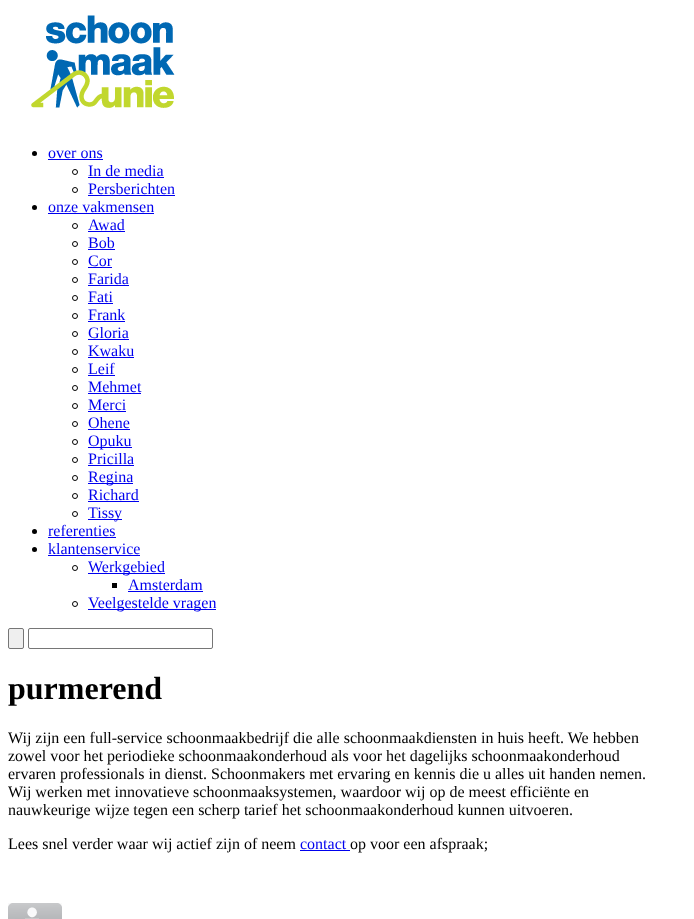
<svg xmlns="http://www.w3.org/2000/svg" width="694" height="919">
<rect width="100%" height="100%" fill="#fff"/>
<image x="31" y="15" width="144" height="93" href="media/1.png"/>
<circle cx="34.5" cy="153.5" r="2.5" fill="#000"/>
<text x="48" y="158" style="font-family:Liberation Serif;font-size:16px;fill:#00e">over ons</text>
<rect x="48" y="159" width="55" height="1" fill="#00e"/>
<circle cx="75" cy="172" r="2.5" fill="none" stroke="#000"/>
<text x="88" y="176" style="font-family:Liberation Serif;font-size:16px;fill:#00e">In de media</text>
<rect x="88" y="177" width="76" height="1" fill="#00e"/>
<circle cx="75" cy="190" r="2.5" fill="none" stroke="#000"/>
<text x="88" y="194" style="font-family:Liberation Serif;font-size:16px;fill:#00e">Persberichten</text>
<rect x="88" y="195" width="87" height="1" fill="#00e"/>
<circle cx="34.5" cy="207.5" r="2.5" fill="#000"/>
<text x="48" y="212" style="font-family:Liberation Serif;font-size:16px;fill:#00e">onze vakmensen</text>
<rect x="48" y="213" width="106" height="1" fill="#00e"/>
<circle cx="75" cy="226" r="2.5" fill="none" stroke="#000"/>
<text x="88" y="230" style="font-family:Liberation Serif;font-size:16px;fill:#00e">Awad</text>
<rect x="88" y="231" width="37" height="1" fill="#00e"/>
<circle cx="75" cy="244" r="2.5" fill="none" stroke="#000"/>
<text x="88" y="248" style="font-family:Liberation Serif;font-size:16px;fill:#00e">Bob</text>
<rect x="88" y="249" width="27" height="1" fill="#00e"/>
<circle cx="75" cy="262" r="2.5" fill="none" stroke="#000"/>
<text x="88" y="266" style="font-family:Liberation Serif;font-size:16px;fill:#00e">Cor</text>
<rect x="88" y="267" width="24" height="1" fill="#00e"/>
<circle cx="75" cy="280" r="2.5" fill="none" stroke="#000"/>
<text x="88" y="284" style="font-family:Liberation Serif;font-size:16px;fill:#00e">Farida</text>
<rect x="88" y="285" width="41" height="1" fill="#00e"/>
<circle cx="75" cy="298" r="2.5" fill="none" stroke="#000"/>
<text x="88" y="302" style="font-family:Liberation Serif;font-size:16px;fill:#00e">Fati</text>
<rect x="88" y="303" width="25" height="1" fill="#00e"/>
<circle cx="75" cy="316" r="2.5" fill="none" stroke="#000"/>
<text x="88" y="320" style="font-family:Liberation Serif;font-size:16px;fill:#00e">Frank</text>
<rect x="88" y="321" width="37" height="1" fill="#00e"/>
<circle cx="75" cy="334" r="2.5" fill="none" stroke="#000"/>
<text x="88" y="338" style="font-family:Liberation Serif;font-size:16px;fill:#00e">Gloria</text>
<rect x="88" y="339" width="41" height="1" fill="#00e"/>
<circle cx="75" cy="352" r="2.5" fill="none" stroke="#000"/>
<text x="88" y="356" style="font-family:Liberation Serif;font-size:16px;fill:#00e">Kwaku</text>
<rect x="88" y="357" width="46" height="1" fill="#00e"/>
<circle cx="75" cy="370" r="2.5" fill="none" stroke="#000"/>
<text x="88" y="374" style="font-family:Liberation Serif;font-size:16px;fill:#00e">Leif</text>
<rect x="88" y="375" width="27" height="1" fill="#00e"/>
<circle cx="75" cy="388" r="2.5" fill="none" stroke="#000"/>
<text x="88" y="392" style="font-family:Liberation Serif;font-size:16px;fill:#00e">Mehmet</text>
<rect x="88" y="393" width="53" height="1" fill="#00e"/>
<circle cx="75" cy="406" r="2.5" fill="none" stroke="#000"/>
<text x="88" y="410" style="font-family:Liberation Serif;font-size:16px;fill:#00e">Merci</text>
<rect x="88" y="411" width="38" height="1" fill="#00e"/>
<circle cx="75" cy="424" r="2.5" fill="none" stroke="#000"/>
<text x="88" y="428" style="font-family:Liberation Serif;font-size:16px;fill:#00e">Ohene</text>
<rect x="88" y="429" width="42" height="1" fill="#00e"/>
<circle cx="75" cy="442" r="2.5" fill="none" stroke="#000"/>
<rect x="88" y="447" width="44" height="1" fill="#00e"/>
<text x="88" y="446" style="font-family:Liberation Serif;font-size:16px;fill:#00e">Opuku</text>
<circle cx="75" cy="460" r="2.5" fill="none" stroke="#000"/>
<text x="88" y="464" style="font-family:Liberation Serif;font-size:16px;fill:#00e">Pricilla</text>
<rect x="88" y="465" width="46" height="1" fill="#00e"/>
<circle cx="75" cy="478" r="2.5" fill="none" stroke="#000"/>
<rect x="88" y="483" width="45" height="1" fill="#00e"/>
<text x="88" y="482" style="font-family:Liberation Serif;font-size:16px;fill:#00e">Regina</text>
<circle cx="75" cy="496" r="2.5" fill="none" stroke="#000"/>
<text x="88" y="500" style="font-family:Liberation Serif;font-size:16px;fill:#00e">Richard</text>
<rect x="88" y="501" width="51" height="1" fill="#00e"/>
<circle cx="75" cy="514" r="2.5" fill="none" stroke="#000"/>
<rect x="88" y="519" width="34" height="1" fill="#00e"/>
<text x="88" y="518" style="font-family:Liberation Serif;font-size:16px;fill:#00e">Tissy</text>
<circle cx="34.5" cy="531.5" r="2.5" fill="#000"/>
<text x="48" y="536" style="font-family:Liberation Serif;font-size:16px;fill:#00e">referenties</text>
<rect x="48" y="537" width="68" height="1" fill="#00e"/>
<circle cx="34.5" cy="549.5" r="2.5" fill="#000"/>
<text x="48" y="554" style="font-family:Liberation Serif;font-size:16px;fill:#00e">klantenservice</text>
<rect x="48" y="555" width="92" height="1" fill="#00e"/>
<circle cx="75" cy="568" r="2.5" fill="none" stroke="#000"/>
<rect x="88" y="573" width="77" height="1" fill="#00e"/>
<text x="88" y="572" style="font-family:Liberation Serif;font-size:16px;fill:#00e">Werkgebied</text>
<rect x="112" y="583" width="5" height="5" fill="#000"/>
<text x="128" y="590" style="font-family:Liberation Serif;font-size:16px;fill:#00e">Amsterdam</text>
<rect x="128" y="591" width="75" height="1" fill="#00e"/>
<circle cx="75" cy="604" r="2.5" fill="none" stroke="#000"/>
<rect x="88" y="609" width="128" height="1" fill="#00e"/>
<text x="88" y="608" style="font-family:Liberation Serif;font-size:16px;fill:#00e">Veelgestelde vragen</text>
<rect x="8.5" y="628.5" width="15" height="20" rx="1.5" fill="#efefef" stroke="#767676"/>
<rect x="28.5" y="628.5" width="184" height="20" rx="1.5" fill="none" stroke="#767676"/>
<text x="8" y="699" style="font-family:Liberation Serif;font-size:32px;font-weight:bold;fill:#000">purmerend</text>
<text x="8" y="743" style="font-family:Liberation Serif;font-size:16px;fill:#000">Wij zijn een full-service schoonmaakbedrijf die alle schoonmaakdiensten in huis heeft. We hebben</text>
<text x="8" y="761" style="font-family:Liberation Serif;font-size:16px;fill:#000">zowel voor het periodieke schoonmaakonderhoud als voor het dagelijks schoonmaakonderhoud</text>
<text x="8" y="779" style="font-family:Liberation Serif;font-size:16px;fill:#000">ervaren professionals in dienst. Schoonmakers met ervaring en kennis die u alles uit handen nemen.</text>
<text x="8" y="797" style="font-family:Liberation Serif;font-size:16px;fill:#000">Wij werken met innovatieve schoonmaaksystemen, waardoor wij op de meest efficiënte en</text>
<text x="8" y="815" style="font-family:Liberation Serif;font-size:16px;fill:#000">nauwkeurige wijze tegen een scherp tarief het schoonmaakonderhoud kunnen uitvoeren.</text>
<text x="8" y="849" style="font-family:Liberation Serif;font-size:16px;fill:#000">Lees snel verder waar wij actief zijn of neem</text>
<text x="300" y="849" style="font-family:Liberation Serif;font-size:16px;fill:#00e">contact</text>
<rect x="300" y="850" width="50" height="1" fill="#00e"/>
<text x="350" y="849" style="font-family:Liberation Serif;font-size:16px;fill:#000">op voor een afspraak;</text>
<image x="8" y="903" width="54" height="16" href="media/2.png"/>
</svg>
